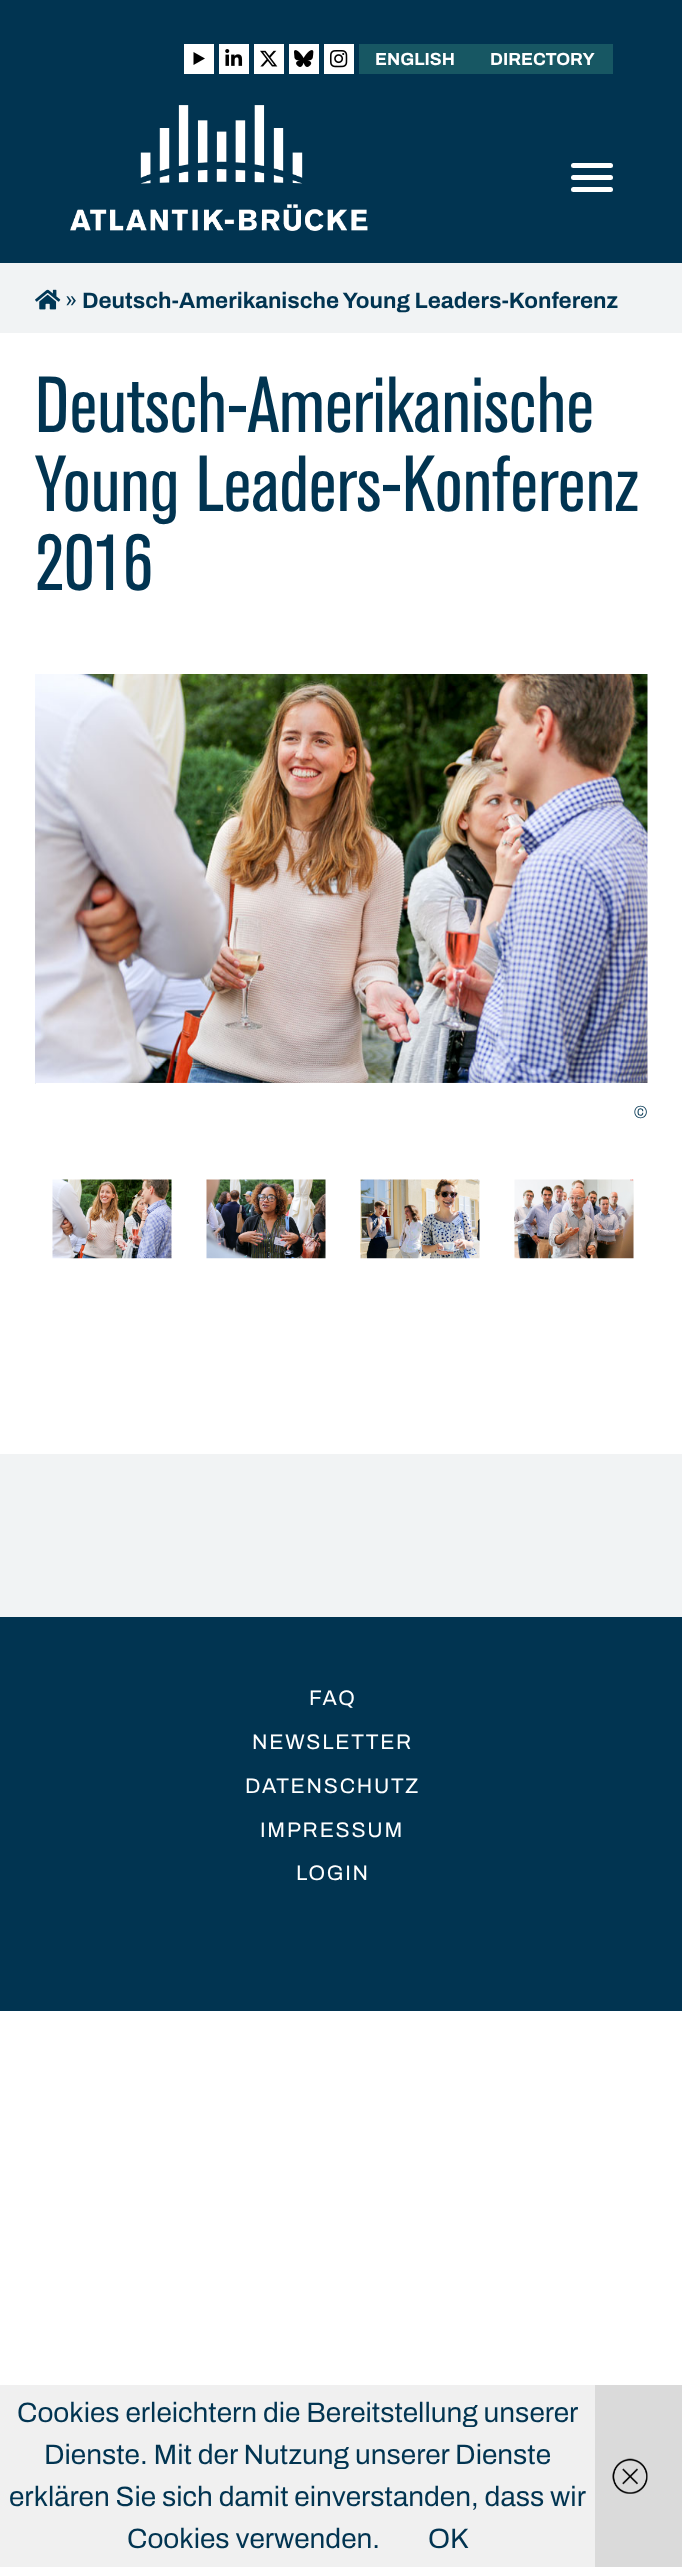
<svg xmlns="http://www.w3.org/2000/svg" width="682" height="2567">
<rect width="100%" height="100%" fill="#fff"/>
<rect width="682" height="263" fill="#013451"/>
<rect x="184" y="44" width="30" height="30" fill="#fff"/>
<path d="M193.5 65v-13l11.5 6.5z" fill="#000"/>
<rect x="219" y="44" width="30" height="30" fill="#fff"/>
<image x="225" y="49" width="18" height="17" href="media/1.png"/>
<rect x="254" y="44" width="30" height="30" fill="#fff"/>
<image x="260" y="50" width="18" height="17" href="media/2.png"/>
<rect x="289" y="44" width="30" height="30" fill="#fff"/>
<image x="294" y="50" width="20" height="17" href="media/3.png"/>
<rect x="324" y="44" width="30" height="30" fill="#fff"/>
<image x="329" y="50" width="19" height="18" href="media/4.png"/>
<rect x="359" y="44" width="254" height="30" fill="#175763"/>
<text x="375" y="65" style="font-family:Archivo;font-size:17.5px;font-weight:bold;fill:#fff">ENGLISH</text>
<text x="490" y="65" style="font-family:Archivo;font-size:17.5px;font-weight:bold;fill:#fff">DIRECTORY</text>
<image x="70" y="105" width="298" height="126" href="media/5.png"/>
<rect x="571" y="175" width="42" height="5" rx="2.5" fill="#fff"/>
<rect x="571" y="163" width="42" height="5" rx="2.5" fill="#fff"/>
<rect x="571" y="187" width="42" height="5" rx="2.5" fill="#fff"/>
<rect y="263" width="682" height="1354" fill="#f1f3f4"/>
<image x="35" y="289" width="26" height="21" href="media/6.png"/>
<text x="65" y="308" style="font-family:Archivo;font-size:22.4px;fill:#013451">»</text>
<text x="82" y="308" style="font-family:Archivo;font-size:22.4px;font-weight:bold;fill:#013451">Deutsch-Amerikanische Young Leaders-Konferenz</text>
<rect y="333" width="682" height="1121" fill="#fff"/>
<text x="35" y="432" style="font-family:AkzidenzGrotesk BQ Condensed;font-size:78.75px;font-weight:500;fill:#013451">Deutsch-Amerikanische</text>
<text x="35" y="511" style="font-family:AkzidenzGrotesk BQ Condensed;font-size:78.75px;font-weight:500;fill:#013451">Young Leaders-Konferenz</text>
<text x="35" y="590" style="font-family:AkzidenzGrotesk BQ Condensed;font-size:78.75px;font-weight:500;fill:#013451">2016</text>
<image x="35" y="1082" width="1" height="2" href="media/7.png"/>
<image x="35" y="674" width="613" height="409" href="media/8.png"/>
<text x="634" y="1118" style="font-family:Archivo;font-size:17.5px;fill:#013451">©</text>
<image x="52" y="1179" width="120" height="80" href="media/9.png"/>
<image x="206" y="1179" width="120" height="80" href="media/10.png"/>
<image x="360" y="1179" width="120" height="80" href="media/11.png"/>
<image x="514" y="1179" width="120" height="80" href="media/12.png"/>
<rect y="1617" width="682" height="394" fill="#013451"/>
<text x="309" y="1705" style="font-family:Archivo;font-size:21px;letter-spacing:1.75px;fill:#fff">FAQ</text>
<text x="252" y="1749" style="font-family:Archivo;font-size:21px;letter-spacing:1.75px;fill:#fff">NEWSLETTER</text>
<text x="245" y="1793" style="font-family:Archivo;font-size:21px;letter-spacing:1.75px;fill:#fff">DATENSCHUTZ</text>
<text x="260" y="1837" style="font-family:Archivo;font-size:21px;letter-spacing:1.75px;fill:#fff">IMPRESSUM</text>
<text x="296" y="1880" style="font-family:Archivo;font-size:21px;letter-spacing:1.75px;fill:#fff">LOGIN</text>
<rect y="2385" width="595" height="182" fill="#f0f0f0"/>
<text x="17" y="2422" style="font-family:Archivo;font-size:28px;fill:#013451">Cookies erleichtern die Bereitstellung unserer</text>
<text x="44" y="2464" style="font-family:Archivo;font-size:28px;fill:#013451">Dienste. Mit der Nutzung unserer Dienste</text>
<text x="9" y="2506" style="font-family:Archivo;font-size:28px;fill:#013451">erklären Sie sich damit einverstanden, dass wir</text>
<text x="127" y="2548" style="font-family:Archivo;font-size:28px;fill:#013451">Cookies verwenden.</text>
<text x="428" y="2548" style="font-family:Archivo;font-size:28px;fill:#013451">OK</text>
<rect x="595" y="2385" width="87" height="182" fill="#dadada"/>
<image x="612" y="2458" width="36" height="36" href="media/13.png"/>
</svg>
